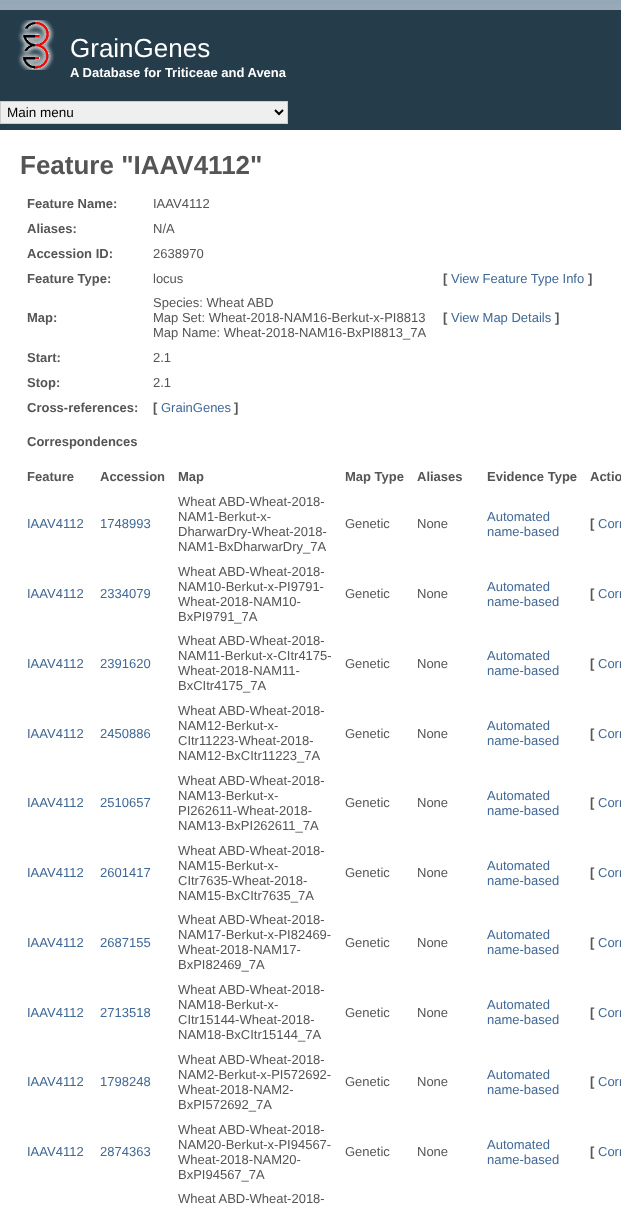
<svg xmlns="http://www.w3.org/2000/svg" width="621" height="1206">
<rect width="100%" height="100%" fill="#fff"/>
<image x="0" y="0" width="621" height="10" href="media/1.png"/>
<rect y="10" width="621" height="120" fill="#253d4b"/>
<image x="17" y="20" width="38" height="50" href="media/2.png"/>
<text x="70" y="57" style="font-family:Liberation Sans;font-size:26px;fill:#fefefe">GrainGenes</text>
<text x="70" y="77" style="font-family:Liberation Sans;font-size:13px;font-weight:bold;fill:#fefefe">A Database for Triticeae and Avena</text>
<rect x="0.5" y="101.5" width="287" height="22" fill="#efefef" stroke="#ccc"/>
<path d="M275 110l4 4l4-4" fill="none" stroke="#000" stroke-width="2"/>
<text x="7" y="117" style="font-family:Liberation Sans;font-size:13.5px;fill:#000">Main menu</text>
<text x="20" y="174" style="font-family:Liberation Sans;font-size:26px;font-weight:bold;fill:#555">Feature "IAAV4112"</text>
<text x="27" y="208" style="font-family:Liberation Sans;font-size:13px;font-weight:bold;fill:#555">Feature Name:</text>
<text x="153" y="208" style="font-family:Liberation Sans;font-size:13px;fill:#555">IAAV4112</text>
<text x="27" y="233" style="font-family:Liberation Sans;font-size:13px;font-weight:bold;fill:#555">Aliases:</text>
<text x="153" y="233" style="font-family:Liberation Sans;font-size:13px;fill:#555">N/A</text>
<text x="27" y="258" style="font-family:Liberation Sans;font-size:13px;font-weight:bold;fill:#555">Accession ID:</text>
<text x="153" y="258" style="font-family:Liberation Sans;font-size:13px;fill:#555">2638970</text>
<text x="27" y="283" style="font-family:Liberation Sans;font-size:13px;font-weight:bold;fill:#555">Feature Type:</text>
<text x="153" y="283" style="font-family:Liberation Sans;font-size:13px;fill:#555">locus</text>
<text x="443" y="283" style="font-family:Liberation Sans;font-size:13px;font-weight:bold;fill:#555">[</text>
<text x="451" y="283" style="font-family:Liberation Sans;font-size:13px;fill:#416896">View Feature Type Info</text>
<text x="588" y="283" style="font-family:Liberation Sans;font-size:13px;font-weight:bold;fill:#555">]</text>
<text x="27" y="322" style="font-family:Liberation Sans;font-size:13px;font-weight:bold;fill:#555">Map:</text>
<text x="153" y="307" style="font-family:Liberation Sans;font-size:13px;fill:#555">Species: Wheat ABD</text>
<text x="153" y="322" style="font-family:Liberation Sans;font-size:13px;fill:#555">Map Set: Wheat-2018-NAM16-Berkut-x-PI8813</text>
<text x="153" y="337" style="font-family:Liberation Sans;font-size:13px;fill:#555">Map Name: Wheat-2018-NAM16-BxPI8813_7A</text>
<text x="443" y="322" style="font-family:Liberation Sans;font-size:13px;font-weight:bold;fill:#555">[</text>
<text x="451" y="322" style="font-family:Liberation Sans;font-size:13px;fill:#416896">View Map Details</text>
<text x="555" y="322" style="font-family:Liberation Sans;font-size:13px;font-weight:bold;fill:#555">]</text>
<text x="27" y="362" style="font-family:Liberation Sans;font-size:13px;font-weight:bold;fill:#555">Start:</text>
<text x="153" y="362" style="font-family:Liberation Sans;font-size:13px;fill:#555">2.1</text>
<text x="27" y="387" style="font-family:Liberation Sans;font-size:13px;font-weight:bold;fill:#555">Stop:</text>
<text x="153" y="387" style="font-family:Liberation Sans;font-size:13px;fill:#555">2.1</text>
<text x="27" y="412" style="font-family:Liberation Sans;font-size:13px;font-weight:bold;fill:#555">Cross-references:</text>
<text x="153" y="412" style="font-family:Liberation Sans;font-size:13px;font-weight:bold;fill:#555">[</text>
<text x="161" y="412" style="font-family:Liberation Sans;font-size:13px;fill:#416896">GrainGenes</text>
<text x="234" y="412" style="font-family:Liberation Sans;font-size:13px;font-weight:bold;fill:#555">]</text>
<text x="27" y="446" style="font-family:Liberation Sans;font-size:13px;font-weight:bold;fill:#555">Correspondences</text>
<text x="27" y="481" style="font-family:Liberation Sans;font-size:13px;font-weight:bold;fill:#555">Feature</text>
<text x="100" y="481" style="font-family:Liberation Sans;font-size:13px;font-weight:bold;fill:#555">Accession</text>
<text x="178" y="481" style="font-family:Liberation Sans;font-size:13px;font-weight:bold;fill:#555">Map</text>
<text x="345" y="481" style="font-family:Liberation Sans;font-size:13px;font-weight:bold;fill:#555">Map Type</text>
<text x="417" y="481" style="font-family:Liberation Sans;font-size:13px;font-weight:bold;fill:#555">Aliases</text>
<text x="487" y="481" style="font-family:Liberation Sans;font-size:13px;font-weight:bold;fill:#555">Evidence Type</text>
<text x="590" y="481" style="font-family:Liberation Sans;font-size:13px;font-weight:bold;fill:#555">Actio</text>
<text x="27" y="528" style="font-family:Liberation Sans;font-size:13px;fill:#416896">IAAV4112</text>
<text x="100" y="528" style="font-family:Liberation Sans;font-size:13px;fill:#416896">1748993</text>
<text x="178" y="506" style="font-family:Liberation Sans;font-size:13px;fill:#555">Wheat ABD-Wheat-2018-</text>
<text x="178" y="521" style="font-family:Liberation Sans;font-size:13px;fill:#555">NAM1-Berkut-x-</text>
<text x="178" y="536" style="font-family:Liberation Sans;font-size:13px;fill:#555">DharwarDry-Wheat-2018-</text>
<text x="178" y="551" style="font-family:Liberation Sans;font-size:13px;fill:#555">NAM1-BxDharwarDry_7A</text>
<text x="345" y="528" style="font-family:Liberation Sans;font-size:13px;fill:#555">Genetic</text>
<text x="417" y="528" style="font-family:Liberation Sans;font-size:13px;fill:#555">None</text>
<text x="487" y="521" style="font-family:Liberation Sans;font-size:13px;fill:#416896">Automated</text>
<text x="487" y="536" style="font-family:Liberation Sans;font-size:13px;fill:#416896">name-based</text>
<text x="590" y="528" style="font-family:Liberation Sans;font-size:13px;font-weight:bold;fill:#555">[</text>
<text x="598" y="528" style="font-family:Liberation Sans;font-size:13px;fill:#416896">Corr</text>
<text x="27" y="598" style="font-family:Liberation Sans;font-size:13px;fill:#416896">IAAV4112</text>
<text x="100" y="598" style="font-family:Liberation Sans;font-size:13px;fill:#416896">2334079</text>
<text x="178" y="576" style="font-family:Liberation Sans;font-size:13px;fill:#555">Wheat ABD-Wheat-2018-</text>
<text x="178" y="591" style="font-family:Liberation Sans;font-size:13px;fill:#555">NAM10-Berkut-x-PI9791-</text>
<text x="178" y="606" style="font-family:Liberation Sans;font-size:13px;fill:#555">Wheat-2018-NAM10-</text>
<text x="178" y="621" style="font-family:Liberation Sans;font-size:13px;fill:#555">BxPI9791_7A</text>
<text x="345" y="598" style="font-family:Liberation Sans;font-size:13px;fill:#555">Genetic</text>
<text x="417" y="598" style="font-family:Liberation Sans;font-size:13px;fill:#555">None</text>
<text x="487" y="591" style="font-family:Liberation Sans;font-size:13px;fill:#416896">Automated</text>
<text x="487" y="606" style="font-family:Liberation Sans;font-size:13px;fill:#416896">name-based</text>
<text x="590" y="598" style="font-family:Liberation Sans;font-size:13px;font-weight:bold;fill:#555">[</text>
<text x="598" y="598" style="font-family:Liberation Sans;font-size:13px;fill:#416896">Corr</text>
<text x="27" y="668" style="font-family:Liberation Sans;font-size:13px;fill:#416896">IAAV4112</text>
<text x="100" y="668" style="font-family:Liberation Sans;font-size:13px;fill:#416896">2391620</text>
<text x="178" y="645" style="font-family:Liberation Sans;font-size:13px;fill:#555">Wheat ABD-Wheat-2018-</text>
<text x="178" y="660" style="font-family:Liberation Sans;font-size:13px;fill:#555">NAM11-Berkut-x-CItr4175-</text>
<text x="178" y="675" style="font-family:Liberation Sans;font-size:13px;fill:#555">Wheat-2018-NAM11-</text>
<text x="178" y="690" style="font-family:Liberation Sans;font-size:13px;fill:#555">BxCItr4175_7A</text>
<text x="345" y="668" style="font-family:Liberation Sans;font-size:13px;fill:#555">Genetic</text>
<text x="417" y="668" style="font-family:Liberation Sans;font-size:13px;fill:#555">None</text>
<text x="487" y="660" style="font-family:Liberation Sans;font-size:13px;fill:#416896">Automated</text>
<text x="487" y="675" style="font-family:Liberation Sans;font-size:13px;fill:#416896">name-based</text>
<text x="590" y="668" style="font-family:Liberation Sans;font-size:13px;font-weight:bold;fill:#555">[</text>
<text x="598" y="668" style="font-family:Liberation Sans;font-size:13px;fill:#416896">Corr</text>
<text x="27" y="738" style="font-family:Liberation Sans;font-size:13px;fill:#416896">IAAV4112</text>
<text x="100" y="738" style="font-family:Liberation Sans;font-size:13px;fill:#416896">2450886</text>
<text x="178" y="715" style="font-family:Liberation Sans;font-size:13px;fill:#555">Wheat ABD-Wheat-2018-</text>
<text x="178" y="730" style="font-family:Liberation Sans;font-size:13px;fill:#555">NAM12-Berkut-x-</text>
<text x="178" y="745" style="font-family:Liberation Sans;font-size:13px;fill:#555">CItr11223-Wheat-2018-</text>
<text x="178" y="760" style="font-family:Liberation Sans;font-size:13px;fill:#555">NAM12-BxCItr11223_7A</text>
<text x="345" y="738" style="font-family:Liberation Sans;font-size:13px;fill:#555">Genetic</text>
<text x="417" y="738" style="font-family:Liberation Sans;font-size:13px;fill:#555">None</text>
<text x="487" y="730" style="font-family:Liberation Sans;font-size:13px;fill:#416896">Automated</text>
<text x="487" y="745" style="font-family:Liberation Sans;font-size:13px;fill:#416896">name-based</text>
<text x="590" y="738" style="font-family:Liberation Sans;font-size:13px;font-weight:bold;fill:#555">[</text>
<text x="598" y="738" style="font-family:Liberation Sans;font-size:13px;fill:#416896">Corr</text>
<text x="27" y="807" style="font-family:Liberation Sans;font-size:13px;fill:#416896">IAAV4112</text>
<text x="100" y="807" style="font-family:Liberation Sans;font-size:13px;fill:#416896">2510657</text>
<text x="178" y="785" style="font-family:Liberation Sans;font-size:13px;fill:#555">Wheat ABD-Wheat-2018-</text>
<text x="178" y="800" style="font-family:Liberation Sans;font-size:13px;fill:#555">NAM13-Berkut-x-</text>
<text x="178" y="815" style="font-family:Liberation Sans;font-size:13px;fill:#555">PI262611-Wheat-2018-</text>
<text x="178" y="830" style="font-family:Liberation Sans;font-size:13px;fill:#555">NAM13-BxPI262611_7A</text>
<text x="345" y="807" style="font-family:Liberation Sans;font-size:13px;fill:#555">Genetic</text>
<text x="417" y="807" style="font-family:Liberation Sans;font-size:13px;fill:#555">None</text>
<text x="487" y="800" style="font-family:Liberation Sans;font-size:13px;fill:#416896">Automated</text>
<text x="487" y="815" style="font-family:Liberation Sans;font-size:13px;fill:#416896">name-based</text>
<text x="590" y="807" style="font-family:Liberation Sans;font-size:13px;font-weight:bold;fill:#555">[</text>
<text x="598" y="807" style="font-family:Liberation Sans;font-size:13px;fill:#416896">Corr</text>
<text x="27" y="877" style="font-family:Liberation Sans;font-size:13px;fill:#416896">IAAV4112</text>
<text x="100" y="877" style="font-family:Liberation Sans;font-size:13px;fill:#416896">2601417</text>
<text x="178" y="855" style="font-family:Liberation Sans;font-size:13px;fill:#555">Wheat ABD-Wheat-2018-</text>
<text x="178" y="870" style="font-family:Liberation Sans;font-size:13px;fill:#555">NAM15-Berkut-x-</text>
<text x="178" y="885" style="font-family:Liberation Sans;font-size:13px;fill:#555">CItr7635-Wheat-2018-</text>
<text x="178" y="900" style="font-family:Liberation Sans;font-size:13px;fill:#555">NAM15-BxCItr7635_7A</text>
<text x="345" y="877" style="font-family:Liberation Sans;font-size:13px;fill:#555">Genetic</text>
<text x="417" y="877" style="font-family:Liberation Sans;font-size:13px;fill:#555">None</text>
<text x="487" y="870" style="font-family:Liberation Sans;font-size:13px;fill:#416896">Automated</text>
<text x="487" y="885" style="font-family:Liberation Sans;font-size:13px;fill:#416896">name-based</text>
<text x="590" y="877" style="font-family:Liberation Sans;font-size:13px;font-weight:bold;fill:#555">[</text>
<text x="598" y="877" style="font-family:Liberation Sans;font-size:13px;fill:#416896">Corr</text>
<text x="27" y="947" style="font-family:Liberation Sans;font-size:13px;fill:#416896">IAAV4112</text>
<text x="100" y="947" style="font-family:Liberation Sans;font-size:13px;fill:#416896">2687155</text>
<text x="178" y="924" style="font-family:Liberation Sans;font-size:13px;fill:#555">Wheat ABD-Wheat-2018-</text>
<text x="178" y="939" style="font-family:Liberation Sans;font-size:13px;fill:#555">NAM17-Berkut-x-PI82469-</text>
<text x="178" y="954" style="font-family:Liberation Sans;font-size:13px;fill:#555">Wheat-2018-NAM17-</text>
<text x="178" y="969" style="font-family:Liberation Sans;font-size:13px;fill:#555">BxPI82469_7A</text>
<text x="345" y="947" style="font-family:Liberation Sans;font-size:13px;fill:#555">Genetic</text>
<text x="417" y="947" style="font-family:Liberation Sans;font-size:13px;fill:#555">None</text>
<text x="487" y="939" style="font-family:Liberation Sans;font-size:13px;fill:#416896">Automated</text>
<text x="487" y="954" style="font-family:Liberation Sans;font-size:13px;fill:#416896">name-based</text>
<text x="590" y="947" style="font-family:Liberation Sans;font-size:13px;font-weight:bold;fill:#555">[</text>
<text x="598" y="947" style="font-family:Liberation Sans;font-size:13px;fill:#416896">Corr</text>
<text x="27" y="1017" style="font-family:Liberation Sans;font-size:13px;fill:#416896">IAAV4112</text>
<text x="100" y="1017" style="font-family:Liberation Sans;font-size:13px;fill:#416896">2713518</text>
<text x="178" y="994" style="font-family:Liberation Sans;font-size:13px;fill:#555">Wheat ABD-Wheat-2018-</text>
<text x="178" y="1009" style="font-family:Liberation Sans;font-size:13px;fill:#555">NAM18-Berkut-x-</text>
<text x="178" y="1024" style="font-family:Liberation Sans;font-size:13px;fill:#555">CItr15144-Wheat-2018-</text>
<text x="178" y="1039" style="font-family:Liberation Sans;font-size:13px;fill:#555">NAM18-BxCItr15144_7A</text>
<text x="345" y="1017" style="font-family:Liberation Sans;font-size:13px;fill:#555">Genetic</text>
<text x="417" y="1017" style="font-family:Liberation Sans;font-size:13px;fill:#555">None</text>
<text x="487" y="1009" style="font-family:Liberation Sans;font-size:13px;fill:#416896">Automated</text>
<text x="487" y="1024" style="font-family:Liberation Sans;font-size:13px;fill:#416896">name-based</text>
<text x="590" y="1017" style="font-family:Liberation Sans;font-size:13px;font-weight:bold;fill:#555">[</text>
<text x="598" y="1017" style="font-family:Liberation Sans;font-size:13px;fill:#416896">Corr</text>
<text x="27" y="1086" style="font-family:Liberation Sans;font-size:13px;fill:#416896">IAAV4112</text>
<text x="100" y="1086" style="font-family:Liberation Sans;font-size:13px;fill:#416896">1798248</text>
<text x="178" y="1064" style="font-family:Liberation Sans;font-size:13px;fill:#555">Wheat ABD-Wheat-2018-</text>
<text x="178" y="1079" style="font-family:Liberation Sans;font-size:13px;fill:#555">NAM2-Berkut-x-PI572692-</text>
<text x="178" y="1094" style="font-family:Liberation Sans;font-size:13px;fill:#555">Wheat-2018-NAM2-</text>
<text x="178" y="1109" style="font-family:Liberation Sans;font-size:13px;fill:#555">BxPI572692_7A</text>
<text x="345" y="1086" style="font-family:Liberation Sans;font-size:13px;fill:#555">Genetic</text>
<text x="417" y="1086" style="font-family:Liberation Sans;font-size:13px;fill:#555">None</text>
<text x="487" y="1079" style="font-family:Liberation Sans;font-size:13px;fill:#416896">Automated</text>
<text x="487" y="1094" style="font-family:Liberation Sans;font-size:13px;fill:#416896">name-based</text>
<text x="590" y="1086" style="font-family:Liberation Sans;font-size:13px;font-weight:bold;fill:#555">[</text>
<text x="598" y="1086" style="font-family:Liberation Sans;font-size:13px;fill:#416896">Corr</text>
<text x="27" y="1156" style="font-family:Liberation Sans;font-size:13px;fill:#416896">IAAV4112</text>
<text x="100" y="1156" style="font-family:Liberation Sans;font-size:13px;fill:#416896">2874363</text>
<text x="178" y="1134" style="font-family:Liberation Sans;font-size:13px;fill:#555">Wheat ABD-Wheat-2018-</text>
<text x="178" y="1149" style="font-family:Liberation Sans;font-size:13px;fill:#555">NAM20-Berkut-x-PI94567-</text>
<text x="178" y="1164" style="font-family:Liberation Sans;font-size:13px;fill:#555">Wheat-2018-NAM20-</text>
<text x="178" y="1179" style="font-family:Liberation Sans;font-size:13px;fill:#555">BxPI94567_7A</text>
<text x="345" y="1156" style="font-family:Liberation Sans;font-size:13px;fill:#555">Genetic</text>
<text x="417" y="1156" style="font-family:Liberation Sans;font-size:13px;fill:#555">None</text>
<text x="487" y="1149" style="font-family:Liberation Sans;font-size:13px;fill:#416896">Automated</text>
<text x="487" y="1164" style="font-family:Liberation Sans;font-size:13px;fill:#416896">name-based</text>
<text x="590" y="1156" style="font-family:Liberation Sans;font-size:13px;font-weight:bold;fill:#555">[</text>
<text x="598" y="1156" style="font-family:Liberation Sans;font-size:13px;fill:#416896">Corr</text>
<text x="178" y="1203" style="font-family:Liberation Sans;font-size:13px;fill:#555">Wheat ABD-Wheat-2018-</text>
</svg>
